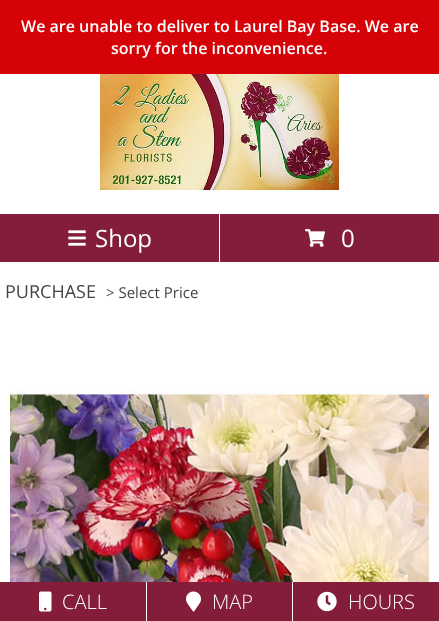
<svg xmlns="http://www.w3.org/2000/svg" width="439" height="621">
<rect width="100%" height="100%" fill="#fff"/>
<rect width="439" height="74" fill="#d50208"/>
<text x="21" y="32" style="font-family:Open Sans;font-size:16px;font-weight:600;fill:#fff">We are unable to deliver to Laurel Bay Base. We are</text>
<text x="111" y="54" style="font-family:Open Sans;font-size:16px;font-weight:600;fill:#fff">sorry for the inconvenience.</text>
<image x="100" y="74" width="239" height="116" href="media/1.png"/>
<rect y="214" width="219" height="48" fill="#831d3a"/>
<image x="68" y="230" width="18" height="16" href="media/2.png"/>
<text x="95" y="247" style="font-family:Open Sans;font-size:24px;fill:#fff">Shop</text>
<rect x="220" y="214" width="219" height="48" fill="#831d3a"/>
<image x="305" y="229" width="20" height="18" href="media/3.png"/>
<text x="341" y="247" style="font-family:Open Sans;font-size:24px;fill:#fff">0</text>
<text x="5" y="298" style="font-family:Open Sans;font-size:18px;fill:#444">PURCHASE</text>
<text x="106" y="298" style="font-family:Open Sans;font-size:15px;fill:#444">&gt; Select Price</text>
<image x="10" y="390" width="419" height="192" href="media/4.png"/>
<rect y="582" width="146" height="39" fill="#831d3a"/>
<image x="39" y="591" width="13" height="21" href="media/5.png"/>
<text x="62" y="609" style="font-family:Open Sans;font-size:20px;font-weight:300;fill:#fff">CALL</text>
<rect x="147" y="582" width="145" height="39" fill="#831d3a"/>
<image x="186" y="591" width="15" height="21" href="media/6.png"/>
<text x="212" y="609" style="font-family:Open Sans;font-size:20px;font-weight:300;fill:#fff">MAP</text>
<rect x="293" y="582" width="146" height="39" fill="#831d3a"/>
<image x="317" y="591" width="20" height="21" href="media/7.png"/>
<text x="348" y="609" style="font-family:Open Sans;font-size:20px;font-weight:300;fill:#fff">HOURS</text>
</svg>
